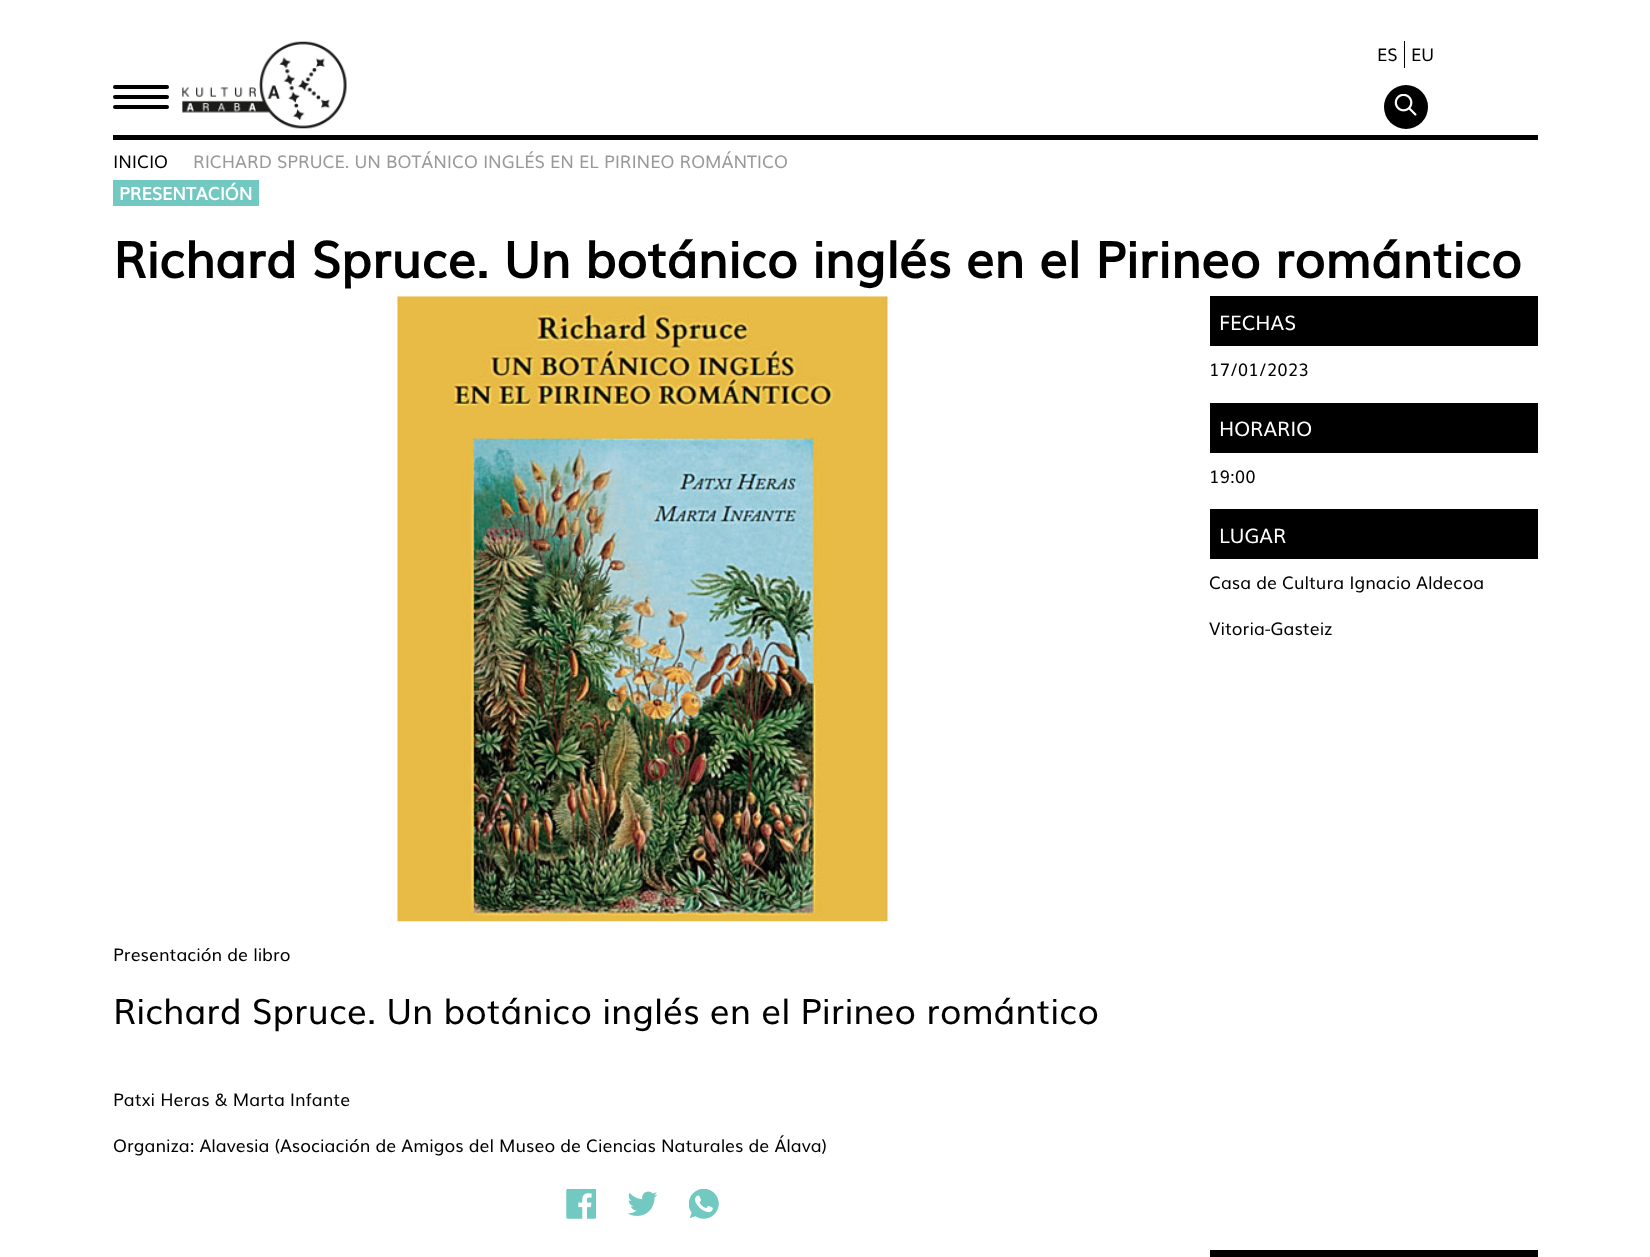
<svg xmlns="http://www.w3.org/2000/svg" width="1650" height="1257">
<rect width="100%" height="100%" fill="#fff"/>
<rect x="113" y="135" width="1425" height="5" fill="#000"/>
<image x="182" y="41" width="165" height="88" href="media/1.png"/>
<rect x="1404" y="41" width="1" height="27" fill="#000"/>
<text x="1377" y="61" style="font-family:Muli;font-size:17.5px;fill:#000">ES</text>
<text x="1411" y="61" style="font-family:Muli;font-size:17.5px;fill:#000">EU</text>
<circle cx="1406" cy="107" r="22" fill="#000"/>
<image x="1394" y="94" width="23" height="22" href="media/2.png"/>
<rect x="113" y="85" width="56" height="4" rx="2" fill="#000"/>
<rect x="113" y="95" width="56" height="4" rx="2" fill="#000"/>
<rect x="113" y="105" width="56" height="4" rx="2" fill="#000"/>
<text x="113" y="168" style="font-family:Muli;font-size:17.5px;fill:#000">INICIO</text>
<text x="193" y="168" style="font-family:Muli;font-size:17.5px;fill:#999">RICHARD SPRUCE. UN BOTÁNICO INGLÉS EN EL PIRINEO ROMÁNTICO</text>
<rect x="113" y="180" width="146" height="26" fill="#71c9c1"/>
<text x="119" y="200" style="font-family:Muli;font-size:17.5px;font-weight:bold;fill:#fff">PRESENTACIÓN</text>
<text x="113" y="278" style="font-family:Muli;font-size:50px;font-weight:bold;fill:#000">Richard Spruce. Un botánico inglés en el Pirineo romántico</text>
<rect x="1210" y="296" width="328" height="50" fill="#000"/>
<text x="1219" y="330" style="font-family:Muli;font-size:20px;fill:#fff">FECHAS</text>
<text x="1209" y="376" style="font-family:Muli;font-size:17.5px;fill:#000">17/01/2023</text>
<rect x="1210" y="403" width="328" height="50" fill="#000"/>
<text x="1219" y="436" style="font-family:Muli;font-size:20px;fill:#fff">HORARIO</text>
<text x="1209" y="483" style="font-family:Muli;font-size:17.5px;fill:#000">19:00</text>
<rect x="1210" y="509" width="328" height="50" fill="#000"/>
<text x="1219" y="543" style="font-family:Muli;font-size:20px;fill:#fff">LUGAR</text>
<text x="1209" y="589" style="font-family:Muli;font-size:17.5px;fill:#000">Casa de Cultura Ignacio Aldecoa</text>
<text x="1209" y="635" style="font-family:Muli;font-size:17.5px;fill:#000">Vitoria-Gasteiz</text>
<rect x="1210" y="1250" width="328" height="7" fill="#000"/>
<image x="397" y="296" width="494" height="626" href="media/3.png"/>
<text x="113" y="961" style="font-family:Muli;font-size:17.5px;fill:#000">Presentación de libro</text>
<text x="113" y="1024" style="font-family:Muli;font-size:35px;fill:#000">Richard Spruce. Un botánico inglés en el Pirineo romántico</text>
<text x="113" y="1106" style="font-family:Muli;font-size:17.5px;fill:#000">Patxi Heras &amp; Marta Infante</text>
<text x="113" y="1152" style="font-family:Muli;font-size:17.5px;fill:#000">Organiza: Alavesia (Asociación de Amigos del Museo de Ciencias Naturales de Álava)</text>
<image x="566" y="1189" width="30" height="30" href="media/4.png"/>
<image x="628" y="1191" width="30" height="25" href="media/5.png"/>
<image x="689" y="1189" width="30" height="30" href="media/6.png"/>
</svg>
